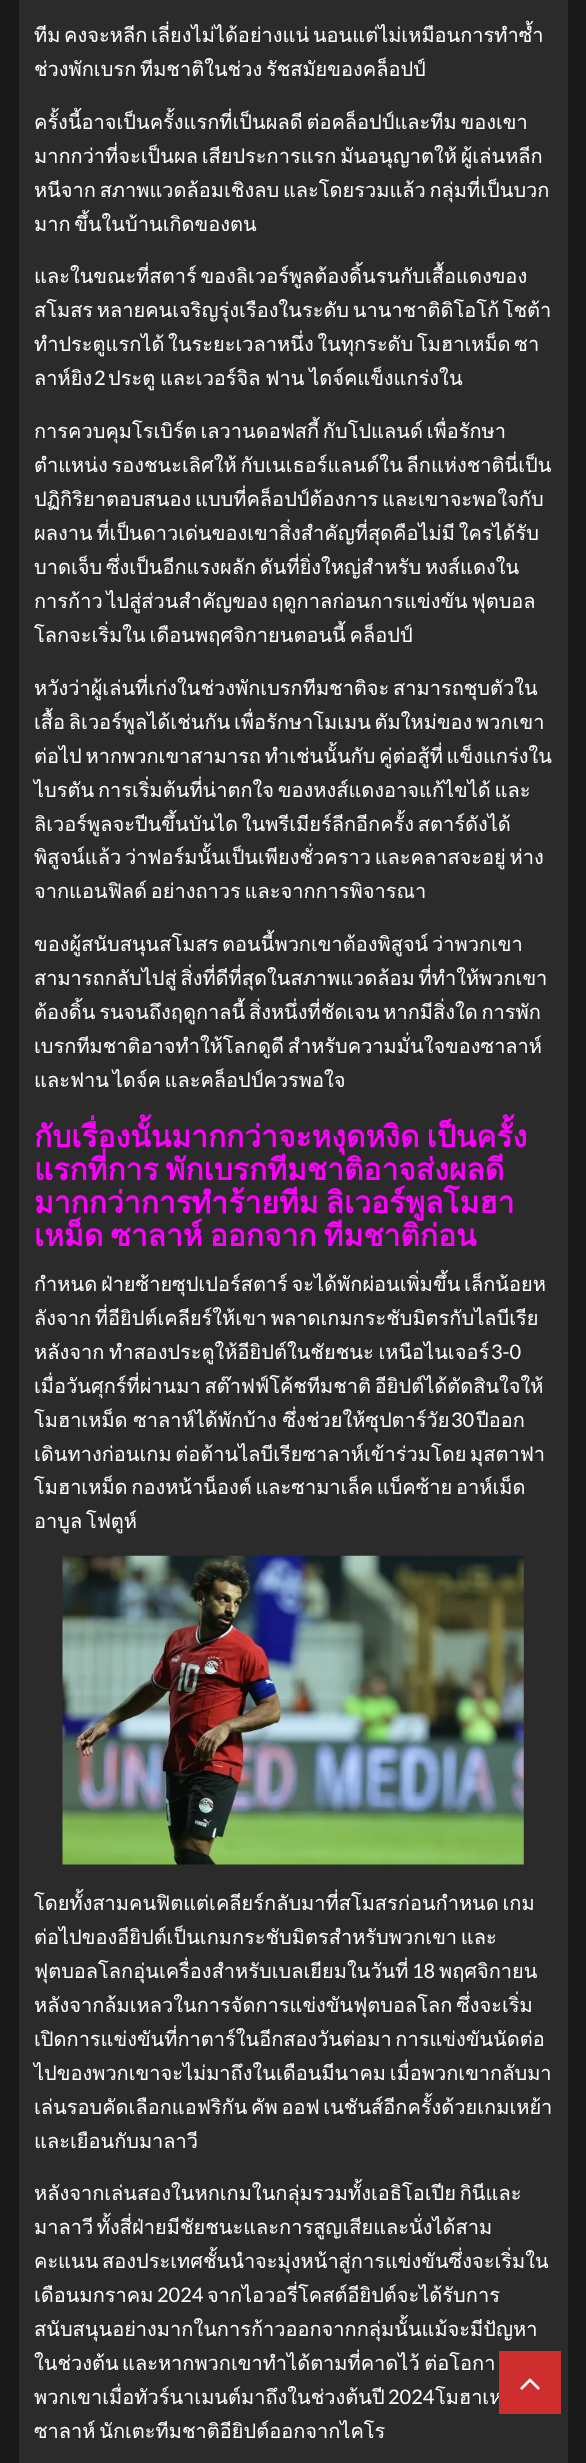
<svg xmlns="http://www.w3.org/2000/svg" width="586" height="2463">
<rect width="100%" height="100%" fill="#181818"/>
<rect x="19" width="549" height="2463" fill="#2b2b2b"/>
<text x="34" y="42" word-spacing="-3" style="font-family:Loma;font-size:20px;fill:#fff">ทีม คงจะหลีก เลี่ยงไม่ได้อย่างแน่ นอนแต่ไม่เหมือนการทำซ้ำ</text>
<text x="34" y="76" word-spacing="-3" style="font-family:Loma;font-size:20px;fill:#fff">ช่วงพักเบรก ทีมชาติในช่วง รัชสมัยของคล็อปป์</text>
<text x="34" y="129" word-spacing="-3" style="font-family:Loma;font-size:20px;fill:#fff">ครั้งนี้อาจเป็นครั้งแรกที่เป็นผลดี ต่อคล็อปป์และทีม ของเขา</text>
<text x="34" y="163" word-spacing="-3" style="font-family:Loma;font-size:20px;fill:#fff">มากกว่าที่จะเป็นผล เสียประการแรก มันอนุญาตให้ ผู้เล่นหลีก</text>
<text x="34" y="197" word-spacing="-3" style="font-family:Loma;font-size:20px;fill:#fff">หนีจาก สภาพแวดล้อมเชิงลบ และโดยรวมแล้ว กลุ่มที่เป็นบวก</text>
<text x="34" y="231" word-spacing="-3" style="font-family:Loma;font-size:20px;fill:#fff">มาก ขึ้นในบ้านเกิดของตน</text>
<text x="34" y="283" word-spacing="-3" style="font-family:Loma;font-size:20px;fill:#fff">และในขณะที่สตาร์ ของลิเวอร์พูลต้องดิ้นรนกับเสื้อแดงของ</text>
<text x="34" y="317" word-spacing="-3" style="font-family:Loma;font-size:20px;fill:#fff">สโมสร หลายคนเจริญรุ่งเรืองในระดับ นานาชาติดิโอโก้ โชต้า</text>
<text x="34" y="351" word-spacing="-3" style="font-family:Loma;font-size:20px;fill:#fff">ทำประตูแรกได้ ในระยะเวลาหนึ่ง ในทุกระดับ โมฮาเหม็ด ซา</text>
<text x="34" y="385" style="font-family:Loma;font-size:20px;fill:#fff">ลาห์ยิง</text>
<text x="94" y="385" style="font-family:Lato;font-size:20px;fill:#fff">2</text>
<text x="108" y="385" word-spacing="-2" style="font-family:Loma;font-size:20px;fill:#fff">ประตู และเวอร์จิล ฟาน ไดจ์คแข็งแกร่งใน</text>
<text x="34" y="438" word-spacing="-3" style="font-family:Loma;font-size:20px;fill:#fff">การควบคุมโรเบิร์ต เลวานดอฟสกี้ กับโปแลนด์ เพื่อรักษา</text>
<text x="34" y="472" word-spacing="-3" style="font-family:Loma;font-size:20px;fill:#fff">ตำแหน่ง รองชนะเลิศให้ กับเนเธอร์แลนด์ใน ลีกแห่งชาตินี่เป็น</text>
<text x="34" y="506" word-spacing="-3" style="font-family:Loma;font-size:20px;fill:#fff">ปฏิกิริยาตอบสนอง แบบที่คล็อปป์ต้องการ และเขาจะพอใจกับ</text>
<text x="34" y="540" word-spacing="-3" style="font-family:Loma;font-size:20px;fill:#fff">ผลงาน ที่เป็นดาวเด่นของเขาสิ่งสำคัญที่สุดคือไม่มี ใครได้รับ</text>
<text x="34" y="574" word-spacing="-3" style="font-family:Loma;font-size:20px;fill:#fff">บาดเจ็บ ซึ่งเป็นอีกแรงผลัก ดันที่ยิ่งใหญ่สำหรับ หงส์แดงใน</text>
<text x="34" y="608" word-spacing="-3" style="font-family:Loma;font-size:20px;fill:#fff">การก้าว ไปสู่ส่วนสำคัญของ ฤดูกาลก่อนการแข่งขัน ฟุตบอล</text>
<text x="34" y="642" word-spacing="-3" style="font-family:Loma;font-size:20px;fill:#fff">โลกจะเริ่มใน เดือนพฤศจิกายนตอนนี้ คล็อปป์</text>
<text x="34" y="695" word-spacing="-3" style="font-family:Loma;font-size:20px;fill:#fff">หวังว่าผู้เล่นที่เก่งในช่วงพักเบรกทีมชาติจะ สามารถชุบตัวใน</text>
<text x="34" y="729" word-spacing="-3" style="font-family:Loma;font-size:20px;fill:#fff">เสื้อ ลิเวอร์พูลได้เช่นกัน เพื่อรักษาโมเมน ตัมใหม่ของ พวกเขา</text>
<text x="34" y="763" word-spacing="-3" style="font-family:Loma;font-size:20px;fill:#fff">ต่อไป หากพวกเขาสามารถ ทำเช่นนั้นกับ คู่ต่อสู้ที่ แข็งแกร่งใน</text>
<text x="34" y="797" word-spacing="-3" style="font-family:Loma;font-size:20px;fill:#fff">ไบรตัน การเริ่มต้นที่น่าตกใจ ของหงส์แดงอาจแก้ไขได้ และ</text>
<text x="34" y="831" word-spacing="-3" style="font-family:Loma;font-size:20px;fill:#fff">ลิเวอร์พูลจะปีนขึ้นบันได ในพรีเมียร์ลีกอีกครั้ง สตาร์ดังได้</text>
<text x="34" y="864" word-spacing="-3" style="font-family:Loma;font-size:20px;fill:#fff">พิสูจน์แล้ว ว่าฟอร์มนั้นเป็นเพียงชั่วคราว และคลาสจะอยู่ ห่าง</text>
<text x="34" y="898" word-spacing="-3" style="font-family:Loma;font-size:20px;fill:#fff">จากแอนฟิลด์ อย่างถาวร และจากการพิจารณา</text>
<text x="34" y="951" word-spacing="-3" style="font-family:Loma;font-size:20px;fill:#fff">ของผู้สนับสนุนสโมสร ตอนนี้พวกเขาต้องพิสูจน์ ว่าพวกเขา</text>
<text x="34" y="985" word-spacing="-3" style="font-family:Loma;font-size:20px;fill:#fff">สามารถกลับไปสู่ สิ่งที่ดีที่สุดในสภาพแวดล้อม ที่ทำให้พวกเขา</text>
<text x="34" y="1019" word-spacing="-3" style="font-family:Loma;font-size:20px;fill:#fff">ต้องดิ้น รนจนถึงฤดูกาลนี้ สิ่งหนึ่งที่ชัดเจน หากมีสิ่งใด การพัก</text>
<text x="34" y="1053" word-spacing="-3" style="font-family:Loma;font-size:20px;fill:#fff">เบรกทีมชาติอาจทำให้โลกดูดี สำหรับความมั่นใจของซาลาห์</text>
<text x="34" y="1087" word-spacing="-3" style="font-family:Loma;font-size:20px;fill:#fff">และฟาน ไดจ์ค และคล็อปป์ควรพอใจ</text>
<text x="34" y="1147" word-spacing="-3" style="font-family:Loma;font-size:30px;font-weight:bold;fill:#f0f">กับเรื่องนั้นมากกว่าจะหงุดหงิด เป็นครั้ง</text>
<text x="34" y="1180" word-spacing="-3" style="font-family:Loma;font-size:30px;font-weight:bold;fill:#f0f">แรกที่การ พักเบรกทีมชาติอาจส่งผลดี</text>
<text x="34" y="1213" word-spacing="-3" style="font-family:Loma;font-size:30px;font-weight:bold;fill:#f0f">มากกว่าการทำร้ายทีม ลิเวอร์พูลโมฮา</text>
<text x="34" y="1246" word-spacing="-3" style="font-family:Loma;font-size:30px;font-weight:bold;fill:#f0f">เหม็ด ซาลาห์ ออกจาก ทีมชาติก่อน</text>
<text x="34" y="1291" word-spacing="-3" style="font-family:Loma;font-size:20px;fill:#fff">กำหนด ฝ่ายซ้ายซุปเปอร์สตาร์ จะได้พักผ่อนเพิ่มขึ้น เล็กน้อยห</text>
<text x="34" y="1325" word-spacing="-3" style="font-family:Loma;font-size:20px;fill:#fff">ลังจาก ที่อียิปต์เคลียร์ให้เขา พลาดเกมกระชับมิตรกับไลบีเรีย</text>
<text x="34" y="1359" word-spacing="-2" style="font-family:Loma;font-size:20px;fill:#fff">หลังจาก ทำสองประตูให้อียิปต์ในชัยชนะ เหนือไนเจอร์</text>
<text x="491" y="1359" style="font-family:Lato;font-size:20px;fill:#fff">3-0</text>
<text x="34" y="1393" word-spacing="-3" style="font-family:Loma;font-size:20px;fill:#fff">เมื่อวันศุกร์ที่ผ่านมา สต๊าฟฟ์โค้ชทีมชาติ อียิปต์ได้ตัดสินใจให้</text>
<text x="34" y="1427" word-spacing="-1" style="font-family:Loma;font-size:20px;fill:#fff">โมฮาเหม็ด ซาลาห์ได้พักบ้าง ซึ่งช่วยให้ซุปตาร์วัย</text>
<text x="451" y="1427" style="font-family:Lato;font-size:20px;fill:#fff">30</text>
<text x="476" y="1427" style="font-family:Loma;font-size:20px;fill:#fff">ปีออก</text>
<text x="34" y="1461" word-spacing="-3" style="font-family:Loma;font-size:20px;fill:#fff">เดินทางก่อนเกม ต่อต้านไลบีเรียซาลาห์เข้าร่วมโดย มุสตาฟา</text>
<text x="34" y="1494" word-spacing="-3" style="font-family:Loma;font-size:20px;fill:#fff">โมฮาเหม็ด กองหน้าน็องต์ และซามาเล็ค แบ็คซ้าย อาห์เม็ด</text>
<text x="34" y="1528" word-spacing="-3" style="font-family:Loma;font-size:20px;fill:#fff">อาบูล โฟตูห์</text>
<image x="62" y="1555" width="462" height="310" href="media/1.png"/>
<text x="34" y="1910" word-spacing="-3" style="font-family:Loma;font-size:20px;fill:#fff">โดยทั้งสามคนฟิตแต่เคลียร์กลับมาที่สโมสรก่อนกำหนด เกม</text>
<text x="34" y="1944" word-spacing="-3" style="font-family:Loma;font-size:20px;fill:#fff">ต่อไปของอียิปต์เป็นเกมกระชับมิตรสำหรับพวกเขา และ</text>
<text x="34" y="1978" style="font-family:Loma;font-size:20px;fill:#fff">ฟุตบอลโลกอุ่นเครื่องสำหรับเบลเยียมในวันที่</text>
<text x="412" y="1978" style="font-family:Lato;font-size:20px;fill:#fff">18</text>
<text x="439" y="1978" style="font-family:Loma;font-size:20px;fill:#fff">พฤศจิกายน</text>
<text x="34" y="2012" word-spacing="-3" style="font-family:Loma;font-size:20px;fill:#fff">หลังจากล้มเหลวในการจัดการแข่งขันฟุตบอลโลก ซึ่งจะเริ่ม</text>
<text x="34" y="2046" word-spacing="-3" style="font-family:Loma;font-size:20px;fill:#fff">เปิดการแข่งขันที่กาตาร์ในอีกสองวันต่อมา การแข่งขันนัดต่อ</text>
<text x="34" y="2080" word-spacing="-3" style="font-family:Loma;font-size:20px;fill:#fff">ไปของพวกเขาจะไม่มาถึงในเดือนมีนาคม เมื่อพวกเขากลับมา</text>
<text x="34" y="2114" word-spacing="-3" style="font-family:Loma;font-size:20px;fill:#fff">เล่นรอบคัดเลือกแอฟริกัน คัพ ออฟ เนชันส์อีกครั้งด้วยเกมเหย้า</text>
<text x="34" y="2148" style="font-family:Loma;font-size:20px;fill:#fff">และเยือนกับมาลาวี</text>
<text x="34" y="2200" word-spacing="-3" style="font-family:Loma;font-size:20px;fill:#fff">หลังจากเล่นสองในหกเกมในกลุ่มรวมทั้งเอธิโอเปีย กินีและ</text>
<text x="34" y="2234" word-spacing="-3" style="font-family:Loma;font-size:20px;fill:#fff">มาลาวี ทั้งสี่ฝ่ายมีชัยชนะและการสูญเสียและนั่งได้สาม</text>
<text x="34" y="2268" word-spacing="-3" style="font-family:Loma;font-size:20px;fill:#fff">คะแนน สองประเทศชั้นนำจะมุ่งหน้าสู่การแข่งขันซึ่งจะเริ่มใน</text>
<text x="34" y="2302" style="font-family:Loma;font-size:20px;fill:#fff">เดือนมกราคม</text>
<text x="157" y="2302" style="font-family:Lato;font-size:20px;fill:#fff">2024</text>
<text x="207" y="2302" style="font-family:Loma;font-size:20px;fill:#fff">จากไอวอรี่โคสต์อียิปต์จะได้รับการ</text>
<text x="34" y="2336" style="font-family:Loma;font-size:20px;fill:#fff">สนับสนุนอย่างมากในการก้าวออกจากกลุ่มนั้นแม้จะมีปัญหา</text>
<text x="34" y="2370" style="font-family:Loma;font-size:20px;fill:#fff">ในช่วงต้น</text>
<text x="122" y="2370" word-spacing="-2" style="font-family:Loma;font-size:20px;fill:#fff">และหากพวกเขาทำได้ตามที่คาดไว้ ต่อโอกา</text>
<text x="34" y="2404" style="font-family:Loma;font-size:20px;fill:#fff">พวกเขาเมื่อทัวร์นาเมนต์มาถึงในช่วงต้นปี</text>
<text x="388" y="2404" style="font-family:Lato;font-size:20px;fill:#fff">2024</text>
<text x="435" y="2404" style="font-family:Loma;font-size:20px;fill:#fff">โมฮาเห</text>
<text x="34" y="2438" word-spacing="-3" style="font-family:Loma;font-size:20px;fill:#fff">ซาลาห์ นักเตะทีมชาติอียิปต์ออกจากไคโร</text>
<rect x="499" y="2351" width="62" height="63" fill="#cf2e2e"/>
<image x="520" y="2378" width="20" height="12" href="media/2.png"/>
</svg>
